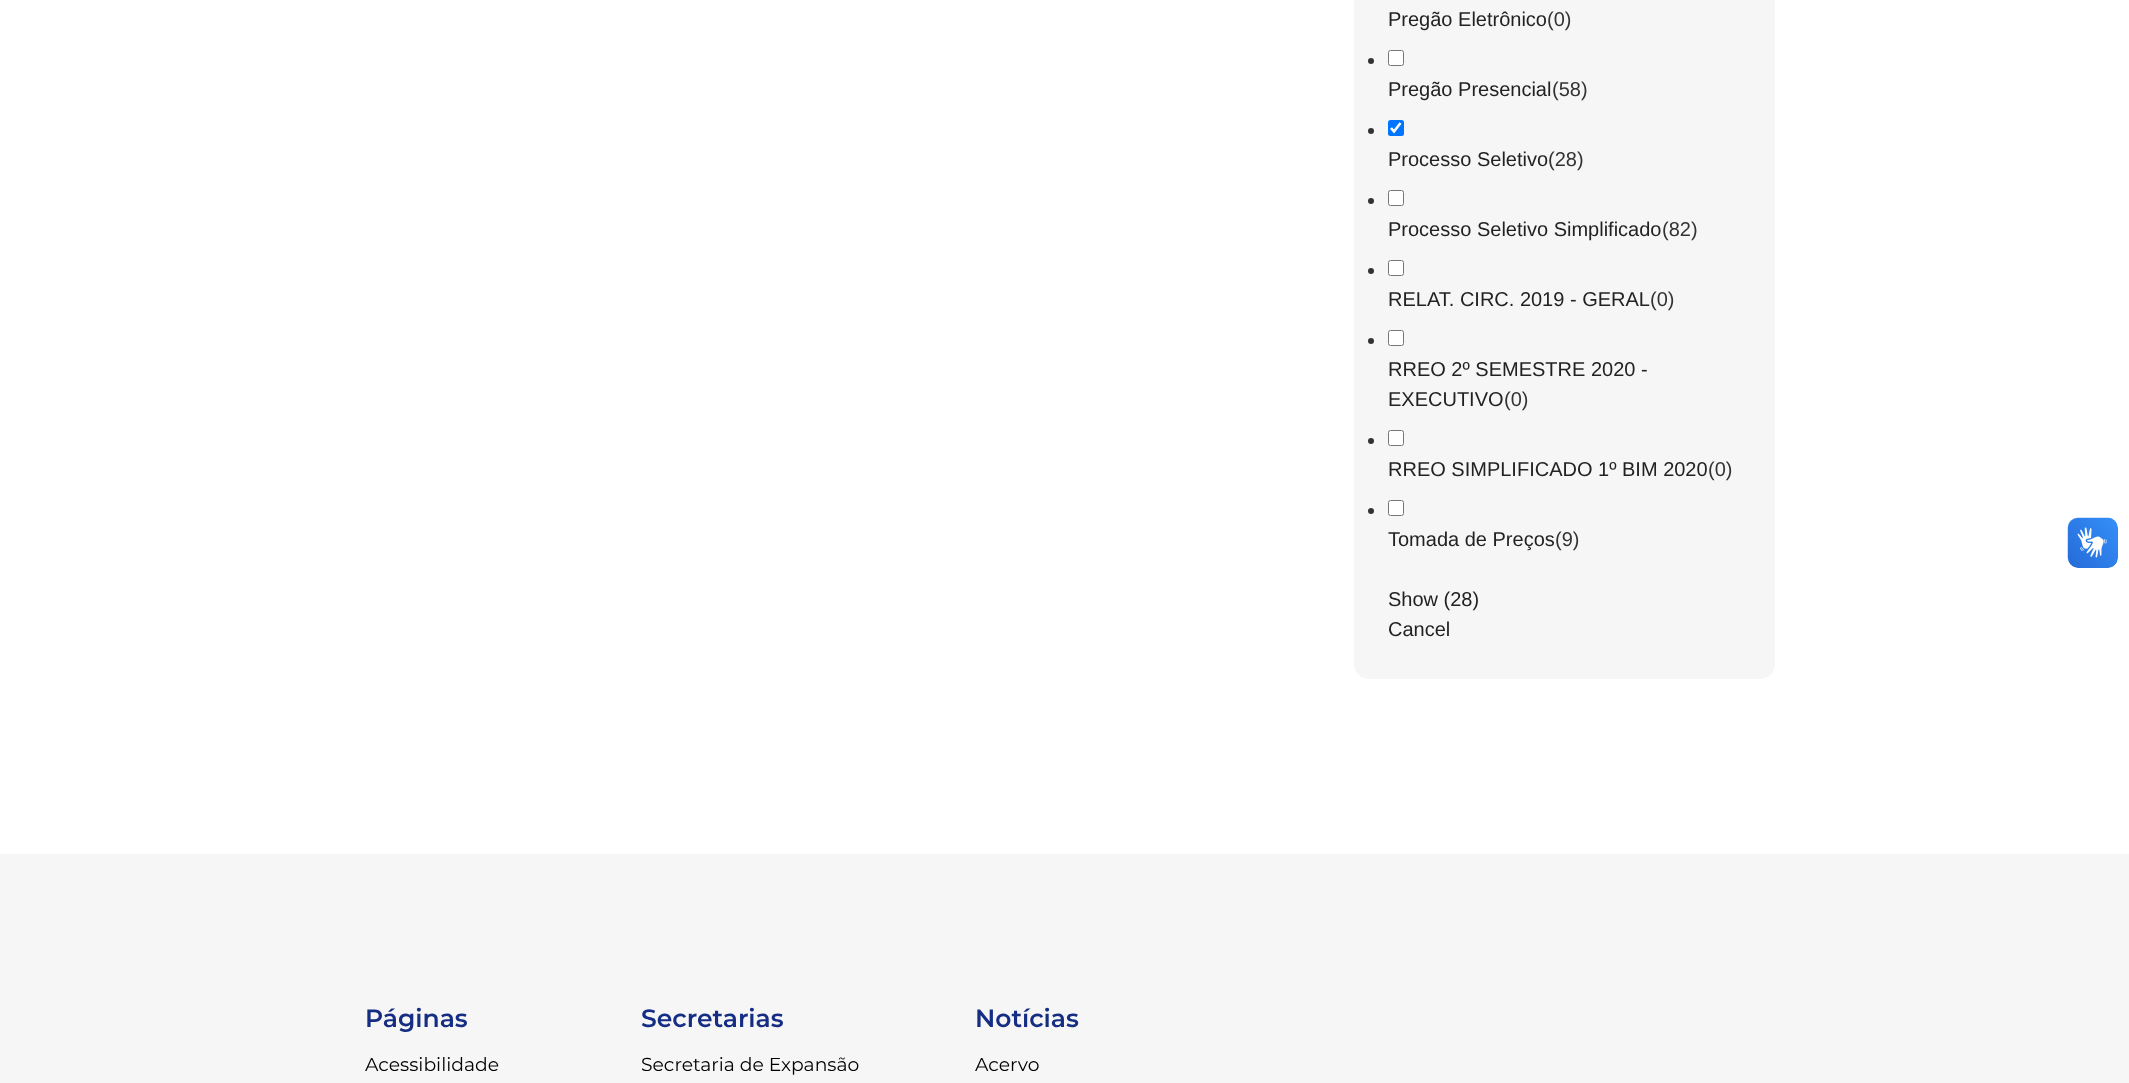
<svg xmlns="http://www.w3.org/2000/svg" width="2129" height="1083">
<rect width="100%" height="100%" fill="#fff"/>
<rect x="1354" y="-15" width="421" height="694" rx="15" fill="#f6f6f6"/>
<text x="1388" y="26" style="font-family:Liberation Sans;font-size:20px;fill:#222">Pregão Eletrônico</text>
<text x="1547" y="26" style="font-family:Liberation Sans;font-size:20px;fill:#333">(0)</text>
<circle cx="1371" cy="61" r="3" fill="#333"/>
<rect x="1388.5" y="50.5" width="15" height="15" rx="2" fill="#fff" stroke="#767676"/>
<text x="1388" y="96" style="font-family:Liberation Sans;font-size:20px;fill:#222">Pregão Presencial</text>
<text x="1552" y="96" style="font-family:Liberation Sans;font-size:20px;fill:#333">(58)</text>
<circle cx="1371" cy="131" r="3" fill="#333"/>
<rect x="1388" y="120" width="16" height="16" rx="2.5" fill="#0075ff"/>
<path d="M1391 128l3 3.5l6.5-8.5" fill="none" stroke="#fff" stroke-width="2.6"/>
<text x="1388" y="166" style="font-family:Liberation Sans;font-size:20px;fill:#222">Processo Seletivo</text>
<text x="1548" y="166" style="font-family:Liberation Sans;font-size:20px;fill:#333">(28)</text>
<circle cx="1371" cy="201" r="3" fill="#333"/>
<rect x="1388.5" y="190.5" width="15" height="15" rx="2" fill="#fff" stroke="#767676"/>
<text x="1388" y="236" style="font-family:Liberation Sans;font-size:20px;fill:#222">Processo Seletivo Simplificado</text>
<text x="1662" y="236" style="font-family:Liberation Sans;font-size:20px;fill:#333">(82)</text>
<circle cx="1371" cy="271" r="3" fill="#333"/>
<rect x="1388.5" y="260.5" width="15" height="15" rx="2" fill="#fff" stroke="#767676"/>
<text x="1388" y="306" style="font-family:Liberation Sans;font-size:20px;fill:#222">RELAT. CIRC. 2019 - GERAL</text>
<text x="1650" y="306" style="font-family:Liberation Sans;font-size:20px;fill:#333">(0)</text>
<circle cx="1371" cy="341" r="3" fill="#333"/>
<rect x="1388.5" y="330.5" width="15" height="15" rx="2" fill="#fff" stroke="#767676"/>
<text x="1388" y="376" style="font-family:Liberation Sans;font-size:20px;fill:#222">RREO 2º SEMESTRE 2020 -</text>
<text x="1388" y="406" style="font-family:Liberation Sans;font-size:20px;fill:#222">EXECUTIVO</text>
<text x="1504" y="406" style="font-family:Liberation Sans;font-size:20px;fill:#333">(0)</text>
<circle cx="1371" cy="441" r="3" fill="#333"/>
<rect x="1388.5" y="430.5" width="15" height="15" rx="2" fill="#fff" stroke="#767676"/>
<text x="1388" y="476" style="font-family:Liberation Sans;font-size:20px;fill:#222">RREO SIMPLIFICADO 1º BIM 2020</text>
<text x="1708" y="476" style="font-family:Liberation Sans;font-size:20px;fill:#333">(0)</text>
<circle cx="1371" cy="511" r="3" fill="#333"/>
<rect x="1388.5" y="500.5" width="15" height="15" rx="2" fill="#fff" stroke="#767676"/>
<text x="1388" y="546" style="font-family:Liberation Sans;font-size:20px;fill:#222">Tomada de Preços</text>
<text x="1555" y="546" style="font-family:Liberation Sans;font-size:20px;fill:#333">(9)</text>
<text x="1388" y="606" style="font-family:Liberation Sans;font-size:20px;fill:#222">Show (28)</text>
<text x="1388" y="636" style="font-family:Liberation Sans;font-size:20px;fill:#222">Cancel</text>
<image x="2067" y="517" width="51" height="51" href="media/1.png"/>
<image x="2068" y="518" width="50" height="50" href="media/2.png"/>
<rect y="854" width="2129" height="229" fill="#f6f6f6"/>
<text x="365" y="1027" style="font-family:Montserrat;font-size:25px;font-weight:600;fill:#152d83">Páginas</text>
<text x="365" y="1071" style="font-family:Montserrat;font-size:18.75px;fill:#000">Acessibilidade</text>
<text x="641" y="1027" style="font-family:Montserrat;font-size:25px;font-weight:600;fill:#152d83">Secretarias</text>
<text x="641" y="1071" style="font-family:Montserrat;font-size:18.75px;fill:#000">Secretaria de Expansão</text>
<text x="975" y="1027" style="font-family:Montserrat;font-size:25px;font-weight:600;fill:#152d83">Notícias</text>
<text x="975" y="1071" style="font-family:Montserrat;font-size:18.75px;fill:#000">Acervo</text>
</svg>
